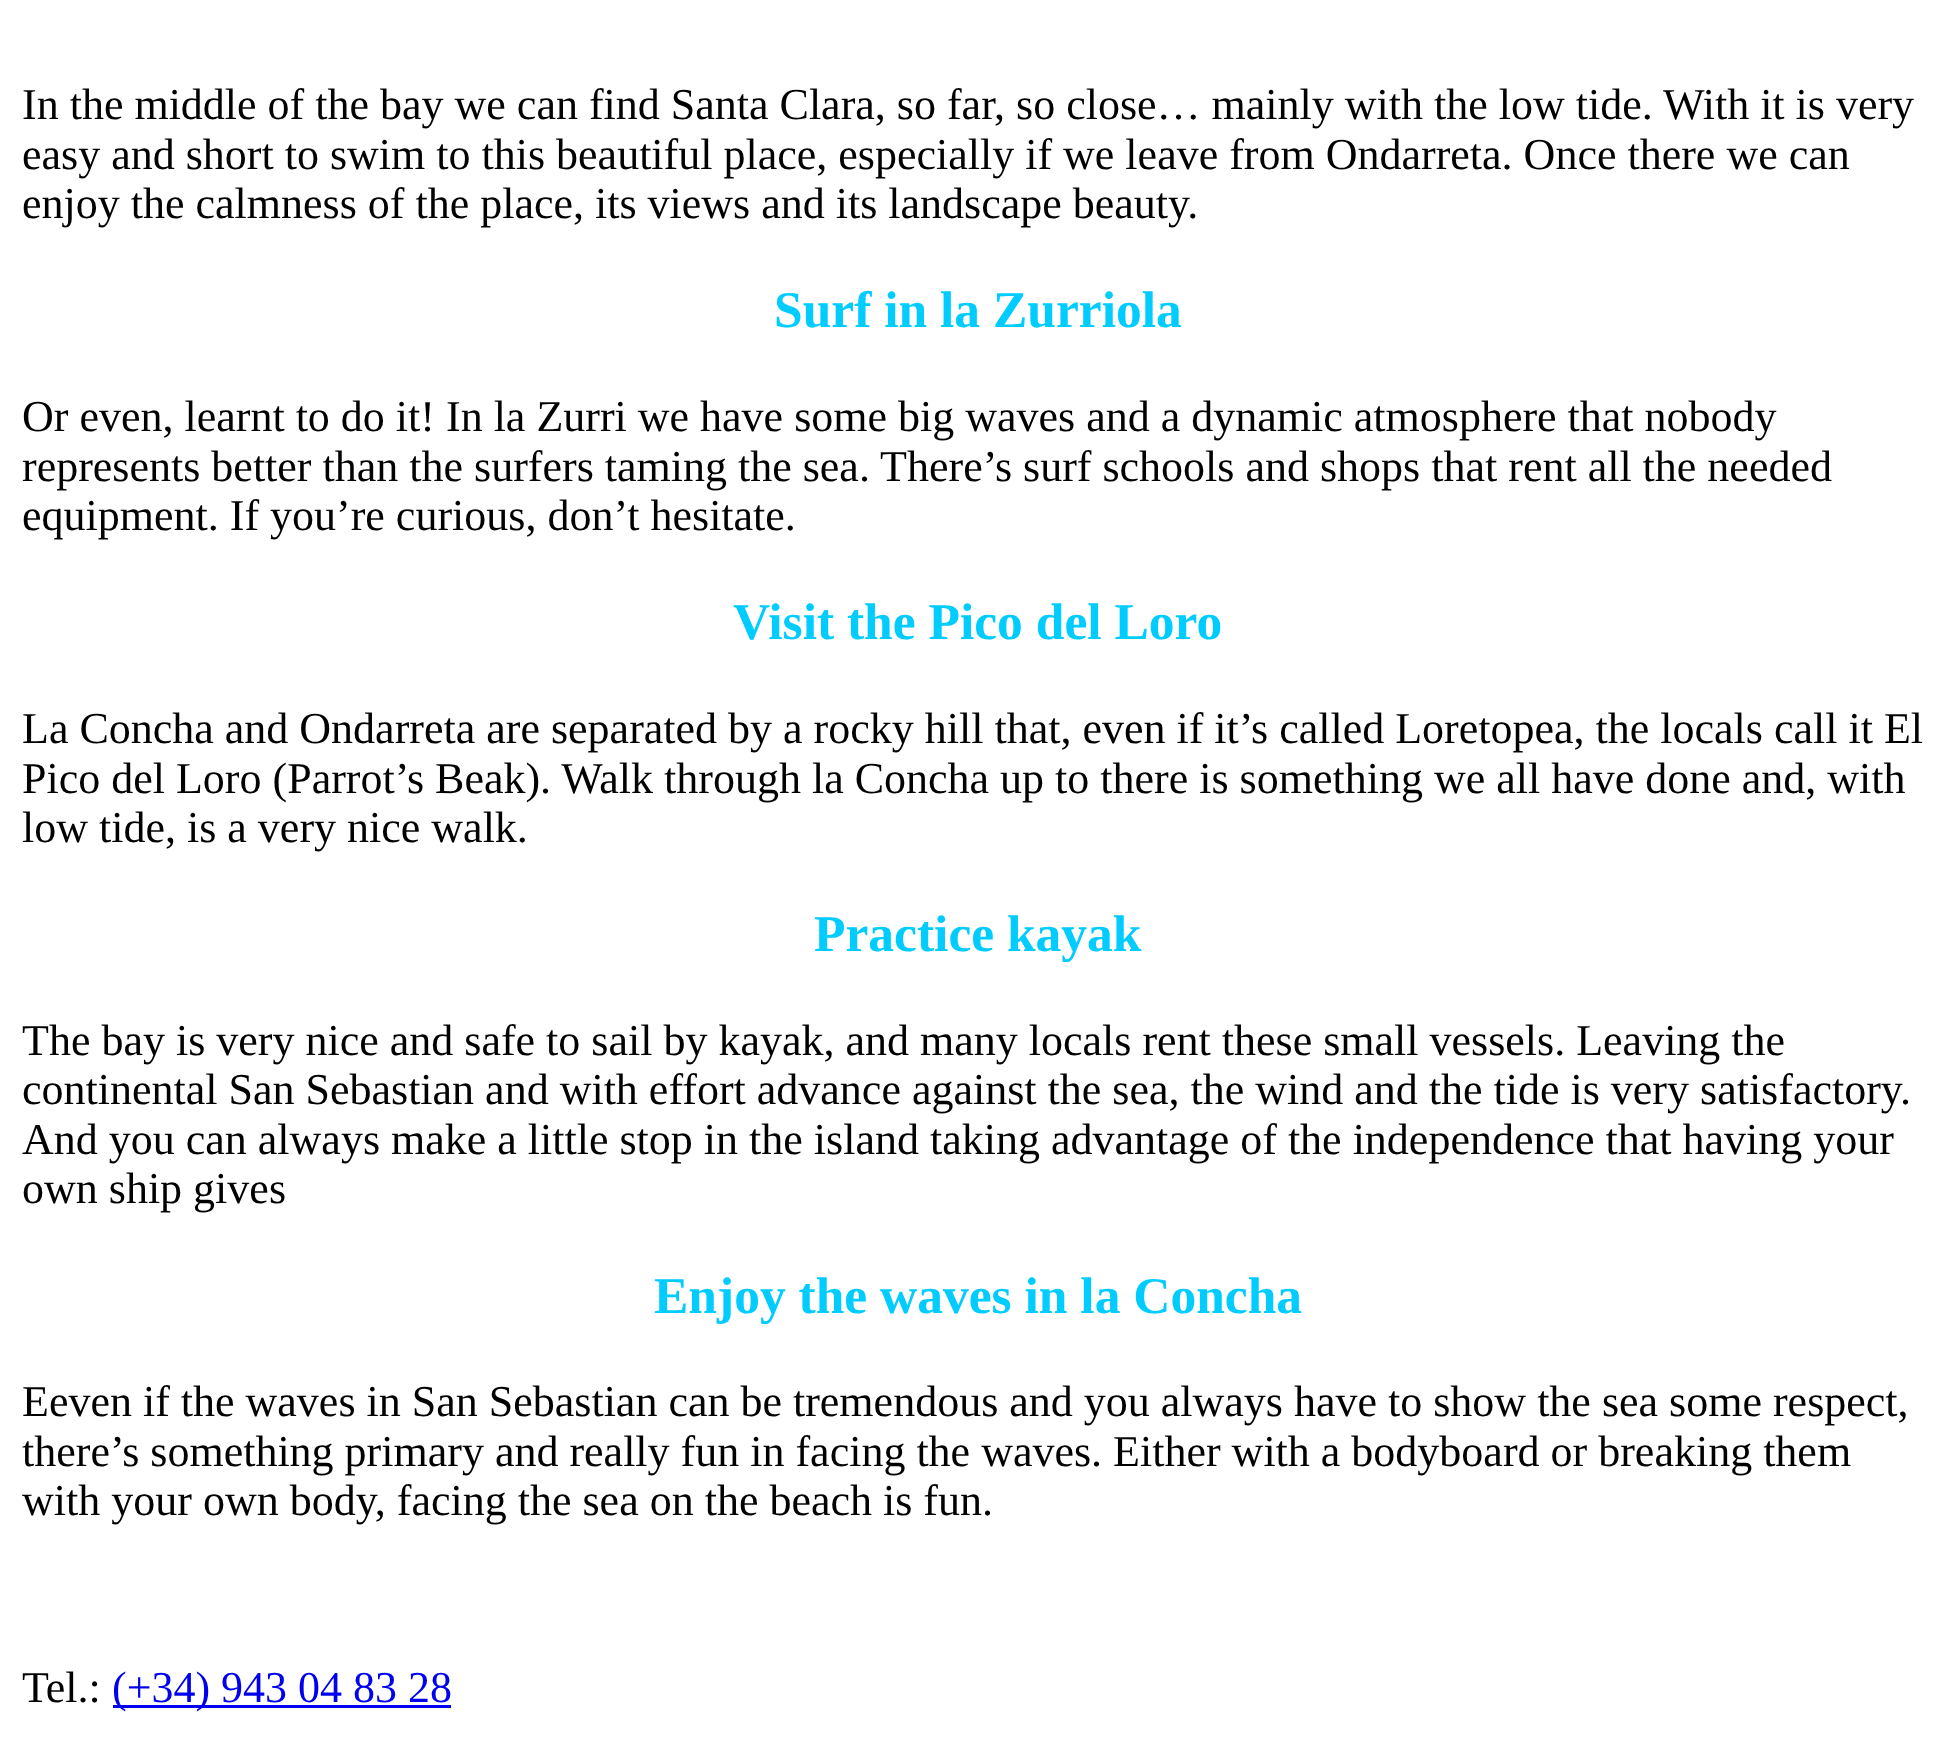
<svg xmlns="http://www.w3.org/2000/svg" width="1955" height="1763">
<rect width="100%" height="100%" fill="#fff"/>
<text x="22" y="119" style="font-family:Liberation Serif;font-size:44px;fill:#000">In the middle of the bay we can find Santa Clara, so far, so close… mainly with the low tide. With it is very</text>
<text x="22" y="169" style="font-family:Liberation Serif;font-size:44px;fill:#000">easy and short to swim to this beautiful place, especially if we leave from Ondarreta. Once there we can</text>
<text x="22" y="218" style="font-family:Liberation Serif;font-size:44px;fill:#000">enjoy the calmness of the place, its views and its landscape beauty.</text>
<text x="774" y="327" style="font-family:Liberation Serif;font-size:51.5px;font-weight:bold;fill:#0cf">Surf in la Zurriola</text>
<text x="22" y="431" style="font-family:Liberation Serif;font-size:44px;fill:#000">Or even, learnt to do it! In la Zurri we have some big waves and a dynamic atmosphere that nobody</text>
<text x="22" y="481" style="font-family:Liberation Serif;font-size:44px;fill:#000">represents better than the surfers taming the sea. There’s surf schools and shops that rent all the needed</text>
<text x="22" y="530" style="font-family:Liberation Serif;font-size:44px;fill:#000">equipment. If you’re curious, don’t hesitate.</text>
<text x="733" y="639" style="font-family:Liberation Serif;font-size:51.5px;font-weight:bold;fill:#0cf">Visit the Pico del Loro</text>
<text x="22" y="743" style="font-family:Liberation Serif;font-size:44px;fill:#000">La Concha and Ondarreta are separated by a rocky hill that, even if it’s called Loretopea, the locals call it El</text>
<text x="22" y="793" style="font-family:Liberation Serif;font-size:44px;fill:#000">Pico del Loro (Parrot’s Beak). Walk through la Concha up to there is something we all have done and, with</text>
<text x="22" y="842" style="font-family:Liberation Serif;font-size:44px;fill:#000">low tide, is a very nice walk.</text>
<text x="814" y="951" style="font-family:Liberation Serif;font-size:51.5px;font-weight:bold;fill:#0cf">Practice kayak</text>
<text x="22" y="1055" style="font-family:Liberation Serif;font-size:44px;fill:#000">The bay is very nice and safe to sail by kayak, and many locals rent these small vessels. Leaving the</text>
<text x="22" y="1104" style="font-family:Liberation Serif;font-size:44px;fill:#000">continental San Sebastian and with effort advance against the sea, the wind and the tide is very satisfactory.</text>
<text x="22" y="1154" style="font-family:Liberation Serif;font-size:44px;fill:#000">And you can always make a little stop in the island taking advantage of the independence that having your</text>
<text x="22" y="1203" style="font-family:Liberation Serif;font-size:44px;fill:#000">own ship gives</text>
<text x="654" y="1313" style="font-family:Liberation Serif;font-size:51.5px;font-weight:bold;fill:#0cf">Enjoy the waves in la Concha</text>
<text x="22" y="1416" style="font-family:Liberation Serif;font-size:44px;fill:#000">Eeven if the waves in San Sebastian can be tremendous and you always have to show the sea some respect,</text>
<text x="22" y="1466" style="font-family:Liberation Serif;font-size:44px;fill:#000">there’s something primary and really fun in facing the waves. Either with a bodyboard or breaking them</text>
<text x="22" y="1515" style="font-family:Liberation Serif;font-size:44px;fill:#000">with your own body, facing the sea on the beach is fun.</text>
<text x="22" y="1702" style="font-family:Liberation Serif;font-size:44px;fill:#000">Tel.:</text>
<rect x="113" y="1705" width="338" height="3" fill="#00e"/>
<text x="112" y="1702" style="font-family:Liberation Serif;font-size:44px;fill:#00e">(+34) 943 04 83 28</text>
</svg>
